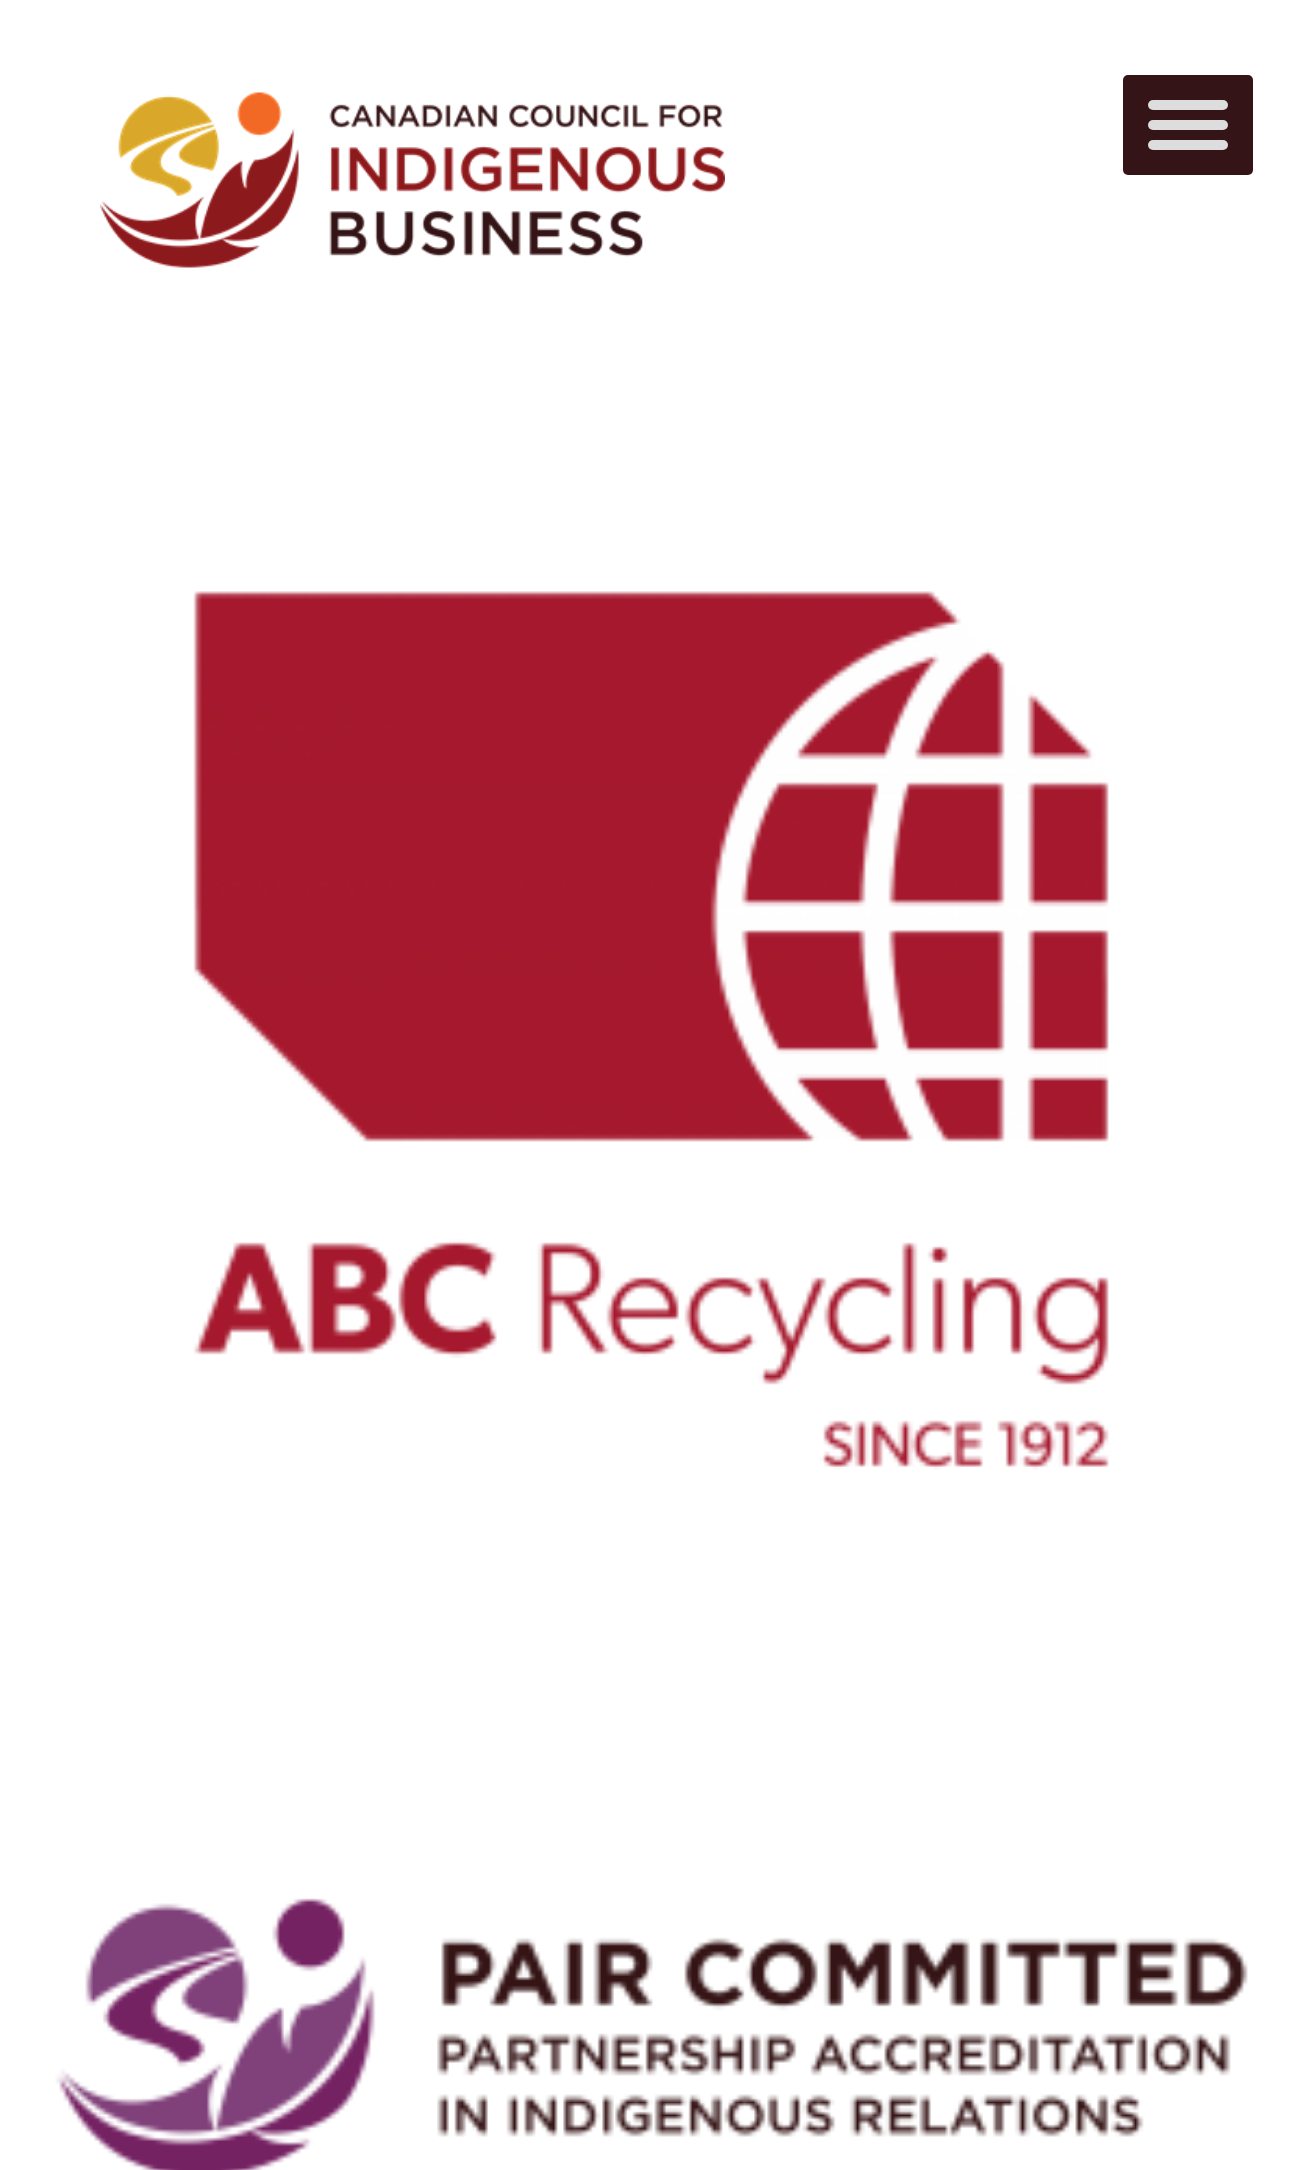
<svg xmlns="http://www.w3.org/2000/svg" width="1302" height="2170">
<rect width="100%" height="100%" fill="#fff"/>
<image x="100" y="92" width="625" height="176" href="media/1.png"/>
<rect x="1123" y="75" width="130" height="100" rx="5" fill="#341416"/>
<rect x="1148" y="100" width="80" height="10" rx="5" fill="#ddd"/>
<rect x="1148" y="120" width="80" height="10" rx="5" fill="#ddd"/>
<rect x="1148" y="140" width="80" height="10" rx="5" fill="#ddd"/>
<image x="193" y="591" width="916" height="879" href="media/2.png"/>
<image x="55" y="1898" width="1193" height="272" href="media/3.png"/>
</svg>
